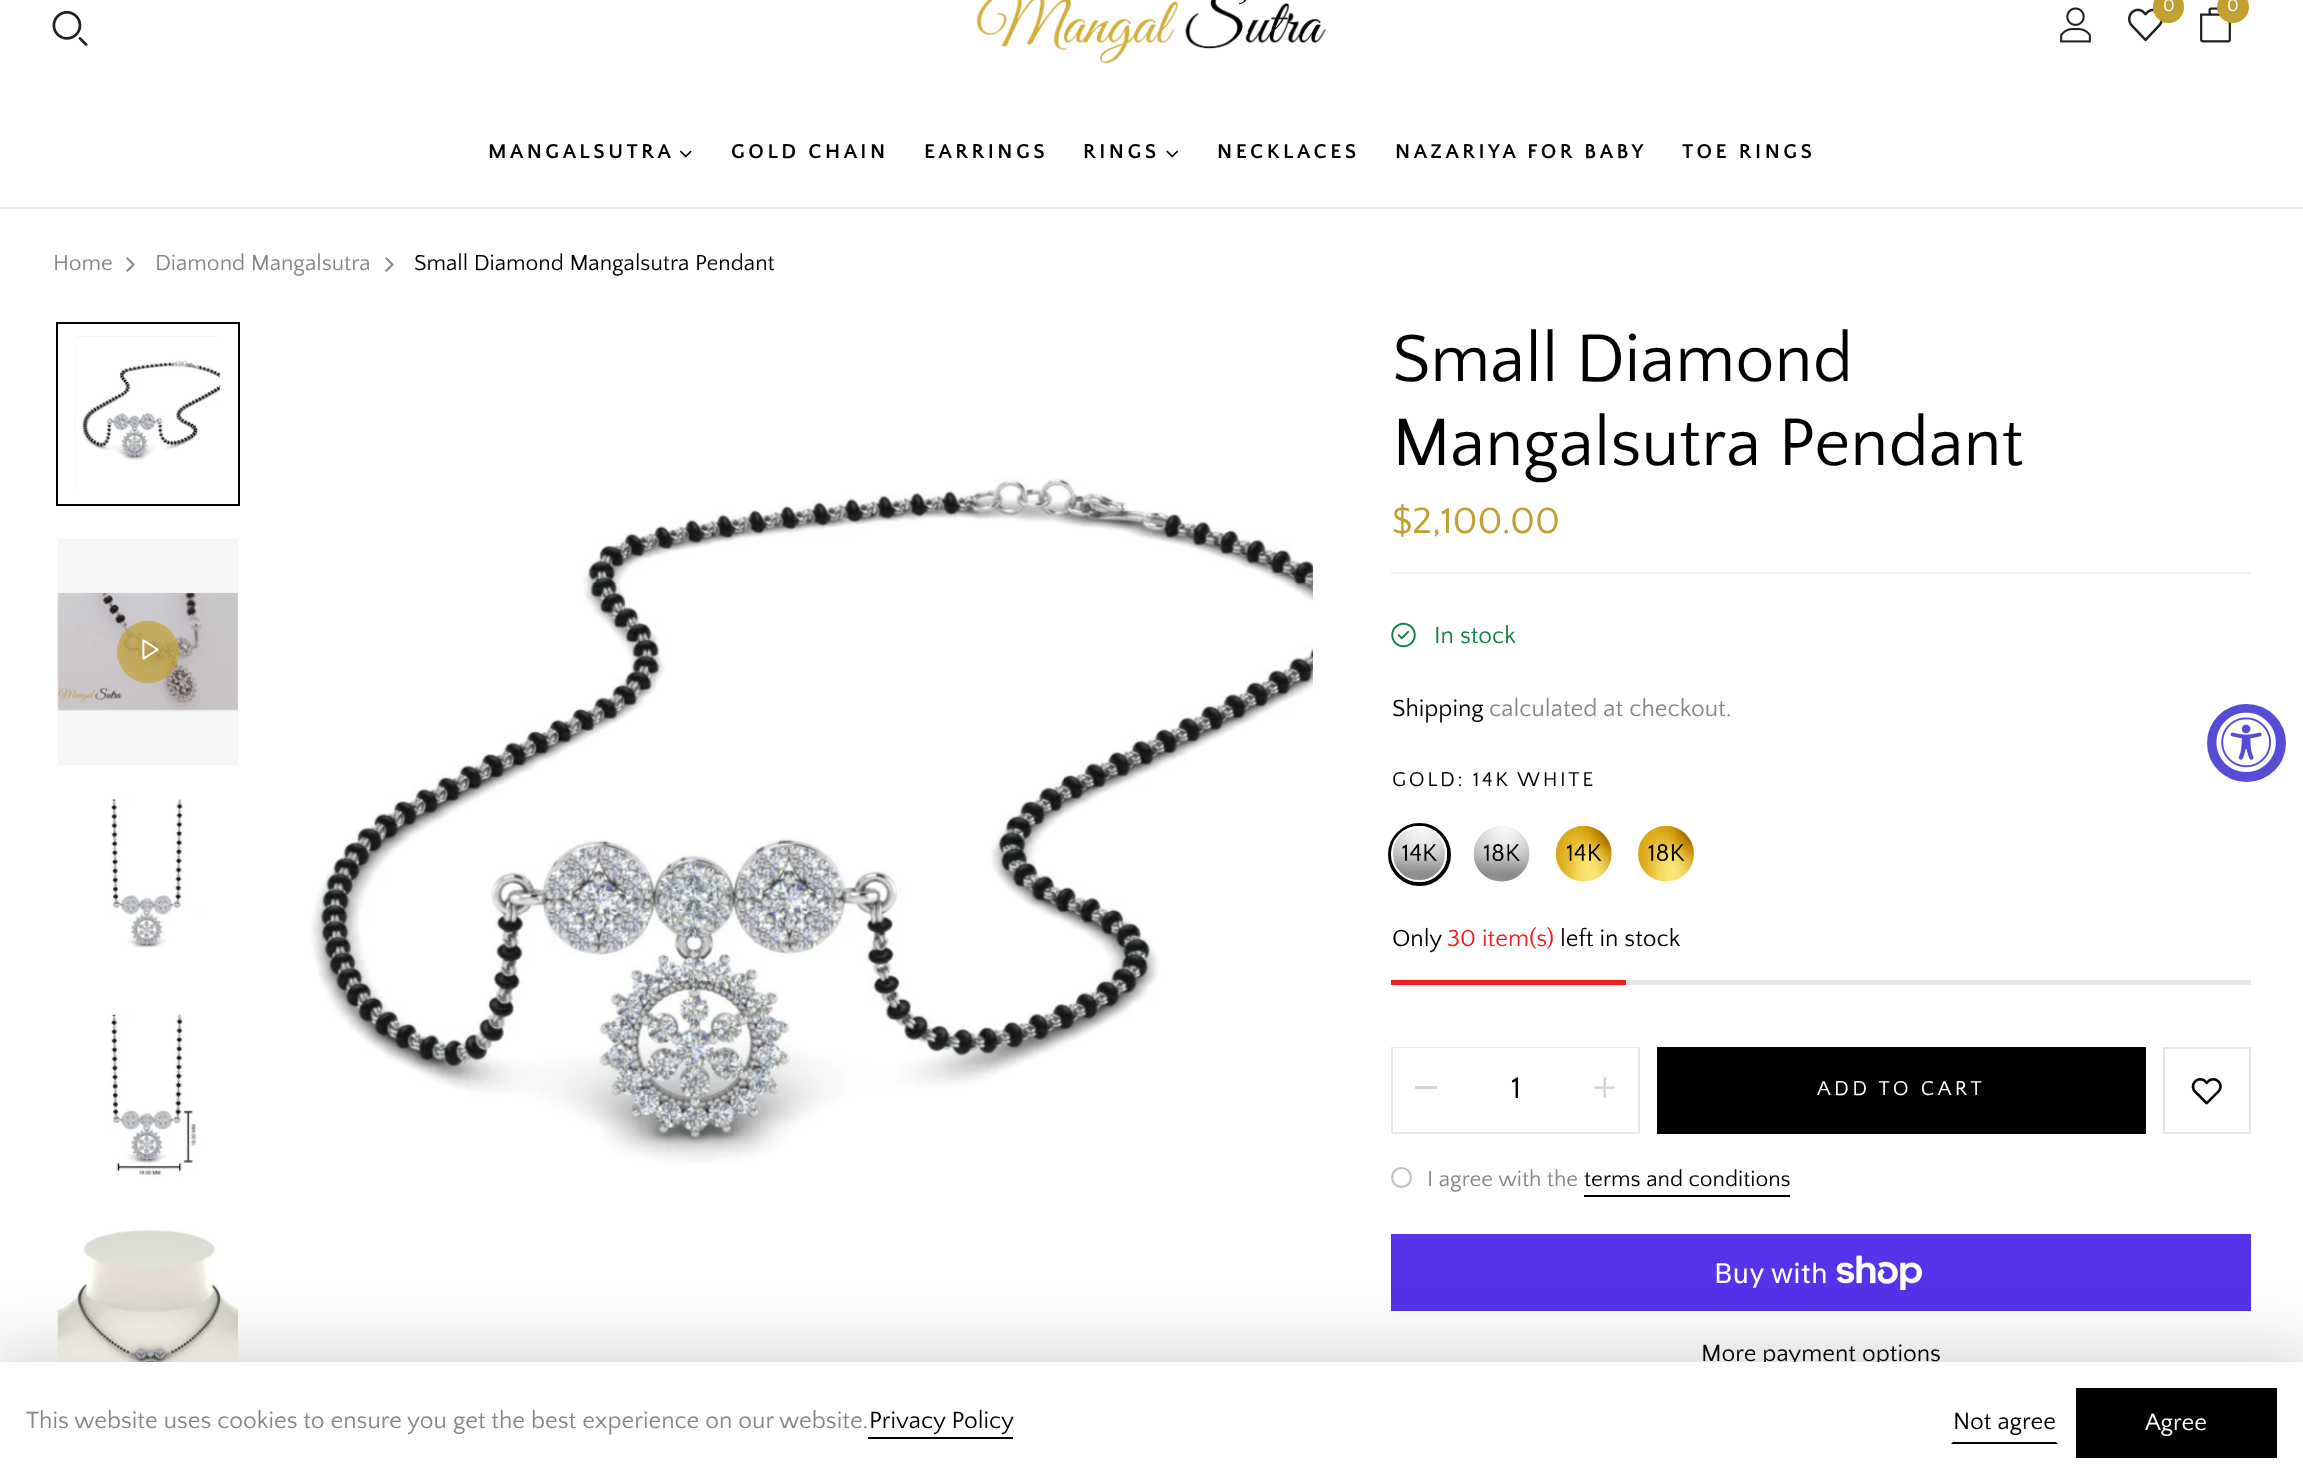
<svg xmlns="http://www.w3.org/2000/svg" width="2303" height="1483">
<rect width="100%" height="100%" fill="#fff"/>
<rect y="207" width="2303" height="2" fill="#e7e7e7"/>
<image x="976" y="0" width="350" height="64" href="media/1.png"/>
<image x="2060" y="7" width="31" height="36" href="media/2.png"/>
<image x="2128" y="8" width="35" height="34" href="media/3.png"/>
<rect x="2153" y="-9" width="31" height="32" rx="15.5" fill="#c0a032"/>
<text x="2163" y="11" style="font-family:Quattrocento Sans;font-size:18px;fill:#fff">0</text>
<image x="2200" y="7" width="31" height="36" href="media/4.png"/>
<circle cx="2233" cy="7" r="16" fill="#c0a032"/>
<text x="2227" y="11" style="font-family:Quattrocento Sans;font-size:18px;fill:#fff">0</text>
<image x="52" y="10" width="36" height="36" href="media/5.png"/>
<text x="488" y="158" style="font-family:Quattrocento Sans;font-size:21px;font-weight:bold;letter-spacing:3.5px;fill:#000">MANGALSUTRA</text>
<image x="679" y="150" width="13" height="8" href="media/6.png"/>
<text x="731" y="158" style="font-family:Quattrocento Sans;font-size:21px;font-weight:bold;letter-spacing:3.5px;fill:#000">GOLD CHAIN</text>
<text x="924" y="158" style="font-family:Quattrocento Sans;font-size:21px;font-weight:bold;letter-spacing:3.5px;fill:#000">EARRINGS</text>
<text x="1083" y="158" style="font-family:Quattrocento Sans;font-size:21px;font-weight:bold;letter-spacing:3.5px;fill:#000">RINGS</text>
<image x="1166" y="150" width="13" height="8" href="media/7.png"/>
<text x="1217" y="158" style="font-family:Quattrocento Sans;font-size:21px;font-weight:bold;letter-spacing:3.5px;fill:#000">NECKLACES</text>
<text x="1395" y="158" style="font-family:Quattrocento Sans;font-size:21px;font-weight:bold;letter-spacing:3.5px;fill:#000">NAZARIYA FOR BABY</text>
<text x="1682" y="158" style="font-family:Quattrocento Sans;font-size:21px;font-weight:bold;letter-spacing:3.5px;fill:#000">TOE RINGS</text>
<text x="53" y="270" style="font-family:Quattrocento Sans;font-size:22.75px;fill:#868686">Home</text>
<image x="126" y="257" width="9" height="15" href="media/8.png"/>
<text x="155" y="270" style="font-family:Quattrocento Sans;font-size:22.75px;fill:#868686">Diamond Mangalsutra</text>
<image x="385" y="257" width="9" height="15" href="media/8.png"/>
<text x="414" y="270" style="font-family:Quattrocento Sans;font-size:22.75px;fill:#000">Small Diamond Mangalsutra Pendant</text>
<rect x="57" y="323" width="182" height="182" fill="none" stroke="#000" stroke-width="2"/>
<rect x="75" y="336" width="144" height="154" fill="#f5f5f5"/>
<image x="76" y="337" width="144" height="153" href="media/9.png"/>
<rect x="58" y="539" width="180" height="226" fill="#f5f5f5"/>
<image x="57" y="593" width="181" height="118" href="media/10.png"/>
<circle cx="148" cy="652" r="31" fill="#c0a032b3"/>
<image x="142" y="639" width="17" height="21" href="media/11.png"/>
<image x="58" y="799" width="180" height="181" href="media/12.png"/>
<image x="58" y="1014" width="180" height="181" href="media/13.png"/>
<image x="57" y="1230" width="181" height="132" href="media/14.png"/>
<image x="268" y="319" width="1045" height="1043" href="media/15.png"/>
<text x="1392" y="381" style="font-family:Quattrocento Sans;font-size:70px;fill:#000">Small Diamond</text>
<text x="1392" y="465" style="font-family:Quattrocento Sans;font-size:70px;fill:#000">Mangalsutra Pendant</text>
<text x="1392" y="533" style="font-family:Quattrocento Sans;font-size:38.5px;fill:#c0a032">$2,100.00</text>
<rect x="1391" y="572" width="860" height="2" fill="#efefef"/>
<image x="1391" y="622" width="25" height="26" href="media/16.png"/>
<text x="1434" y="643" style="font-family:Quattrocento Sans;font-size:24.5px;fill:#108043">In stock</text>
<text x="1392" y="716" style="font-family:Quattrocento Sans;font-size:24.5px;fill:#000">Shipping</text>
<text x="1489" y="716" style="font-family:Quattrocento Sans;font-size:24.5px;fill:#868686">calculated at checkout.</text>
<text x="1392" y="786" style="font-family:Quattrocento Sans;font-size:21px;letter-spacing:2.6px;fill:#000">GOLD: 14K WHITE</text>
<circle cx="1419.5" cy="854.5" r="29.5" fill="none" stroke="#000" stroke-width="4"/>
<image x="1391" y="825" width="57" height="57" href="media/17.png"/>
<circle cx="1419" cy="854" r="27" fill="none" stroke="#fff" stroke-width="2"/>
<image x="1473" y="826" width="57" height="56" href="media/18.png"/>
<image x="1555" y="825" width="57" height="57" href="media/19.png"/>
<image x="1638" y="825" width="56" height="57" href="media/20.png"/>
<text x="1392" y="946" style="font-family:Quattrocento Sans;font-size:24.5px;fill:#000">Only</text>
<text x="1447" y="946" style="font-family:Quattrocento Sans;font-size:24.5px;fill:#f11e1e">30 item(s)</text>
<text x="1560" y="946" style="font-family:Quattrocento Sans;font-size:24.5px;fill:#000">left in stock</text>
<rect x="1626" y="980" width="625" height="5" fill="#e6e6e6"/>
<rect x="1391" y="980" width="235" height="5" fill="#f11e1e"/>
<rect x="1392" y="1048" width="247" height="85" fill="none" stroke="#e6e6e6" stroke-width="2"/>
<rect x="1415" y="1086" width="22" height="3" fill="#d5d5d5"/>
<rect x="1393" y="1048" width="245" height="1" fill="#fff"/>
<text x="1511" y="1098" style="font-family:Quattrocento Sans;font-size:32px;fill:#000">1</text>
<image x="1594" y="1077" width="22" height="21" href="media/21.png"/>
<rect x="1657" y="1047" width="489" height="87" fill="#000"/>
<text x="1817" y="1095" style="font-family:Quattrocento Sans;font-size:21px;letter-spacing:3.5px;fill:#fff">ADD TO CART</text>
<rect x="2164" y="1048" width="86" height="85" fill="none" stroke="#e6e6e6" stroke-width="2"/>
<image x="2191" y="1078" width="31" height="27" href="media/22.png"/>
<circle cx="1401.5" cy="1177.5" r="9.5" fill="none" stroke="#bfbfbf" stroke-width="2"/>
<text x="1427" y="1186" style="font-family:Quattrocento Sans;font-size:22.75px;fill:#868686">I agree with the</text>
<text x="1584" y="1186" style="font-family:Quattrocento Sans;font-size:22.75px;fill:#000">terms and conditions</text>
<rect x="1584" y="1195" width="206" height="2" fill="#000"/>
<rect x="1391" y="1234" width="860" height="77" fill="#5433eb"/>
<text x="1714" y="1283" style="font-family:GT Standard;font-size:28px;fill:#fff">Buy with</text>
<image x="1836" y="1255" width="86" height="35" href="media/23.png"/>
<text x="1701" y="1361" style="font-family:Quattrocento Sans;font-size:24.5px;fill:#000">More payment options</text>
<rect x="2207" y="704" width="79" height="78" rx="39" fill="#574cd5"/>
<image x="2216" y="712" width="60" height="60" href="media/24.png"/>
<rect x="-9" y="1344" width="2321" height="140" fill="#00000024" filter="blur(30.5px)"/>
<rect y="1362" width="2303" height="121" fill="#fff"/>
<text x="26" y="1428" style="font-family:Quattrocento Sans;font-size:24.5px;fill:#868686">This website uses cookies to ensure you get the best experience on our website.</text>
<rect x="868" y="1437" width="145" height="2" fill="#000"/>
<text x="869" y="1428" style="font-family:Quattrocento Sans;font-size:24.5px;fill:#000">Privacy Policy</text>
<path d="M2058 1444h-107l2-2h103z" fill="#000"/>
<text x="1953" y="1429" style="font-family:Quattrocento Sans;font-size:24.5px;fill:#000">Not agree</text>
<rect x="2076" y="1388" width="201" height="70" fill="#000"/>
<text x="2145" y="1430" style="font-family:Quattrocento Sans;font-size:24.5px;fill:#fff">Agree</text>
</svg>
